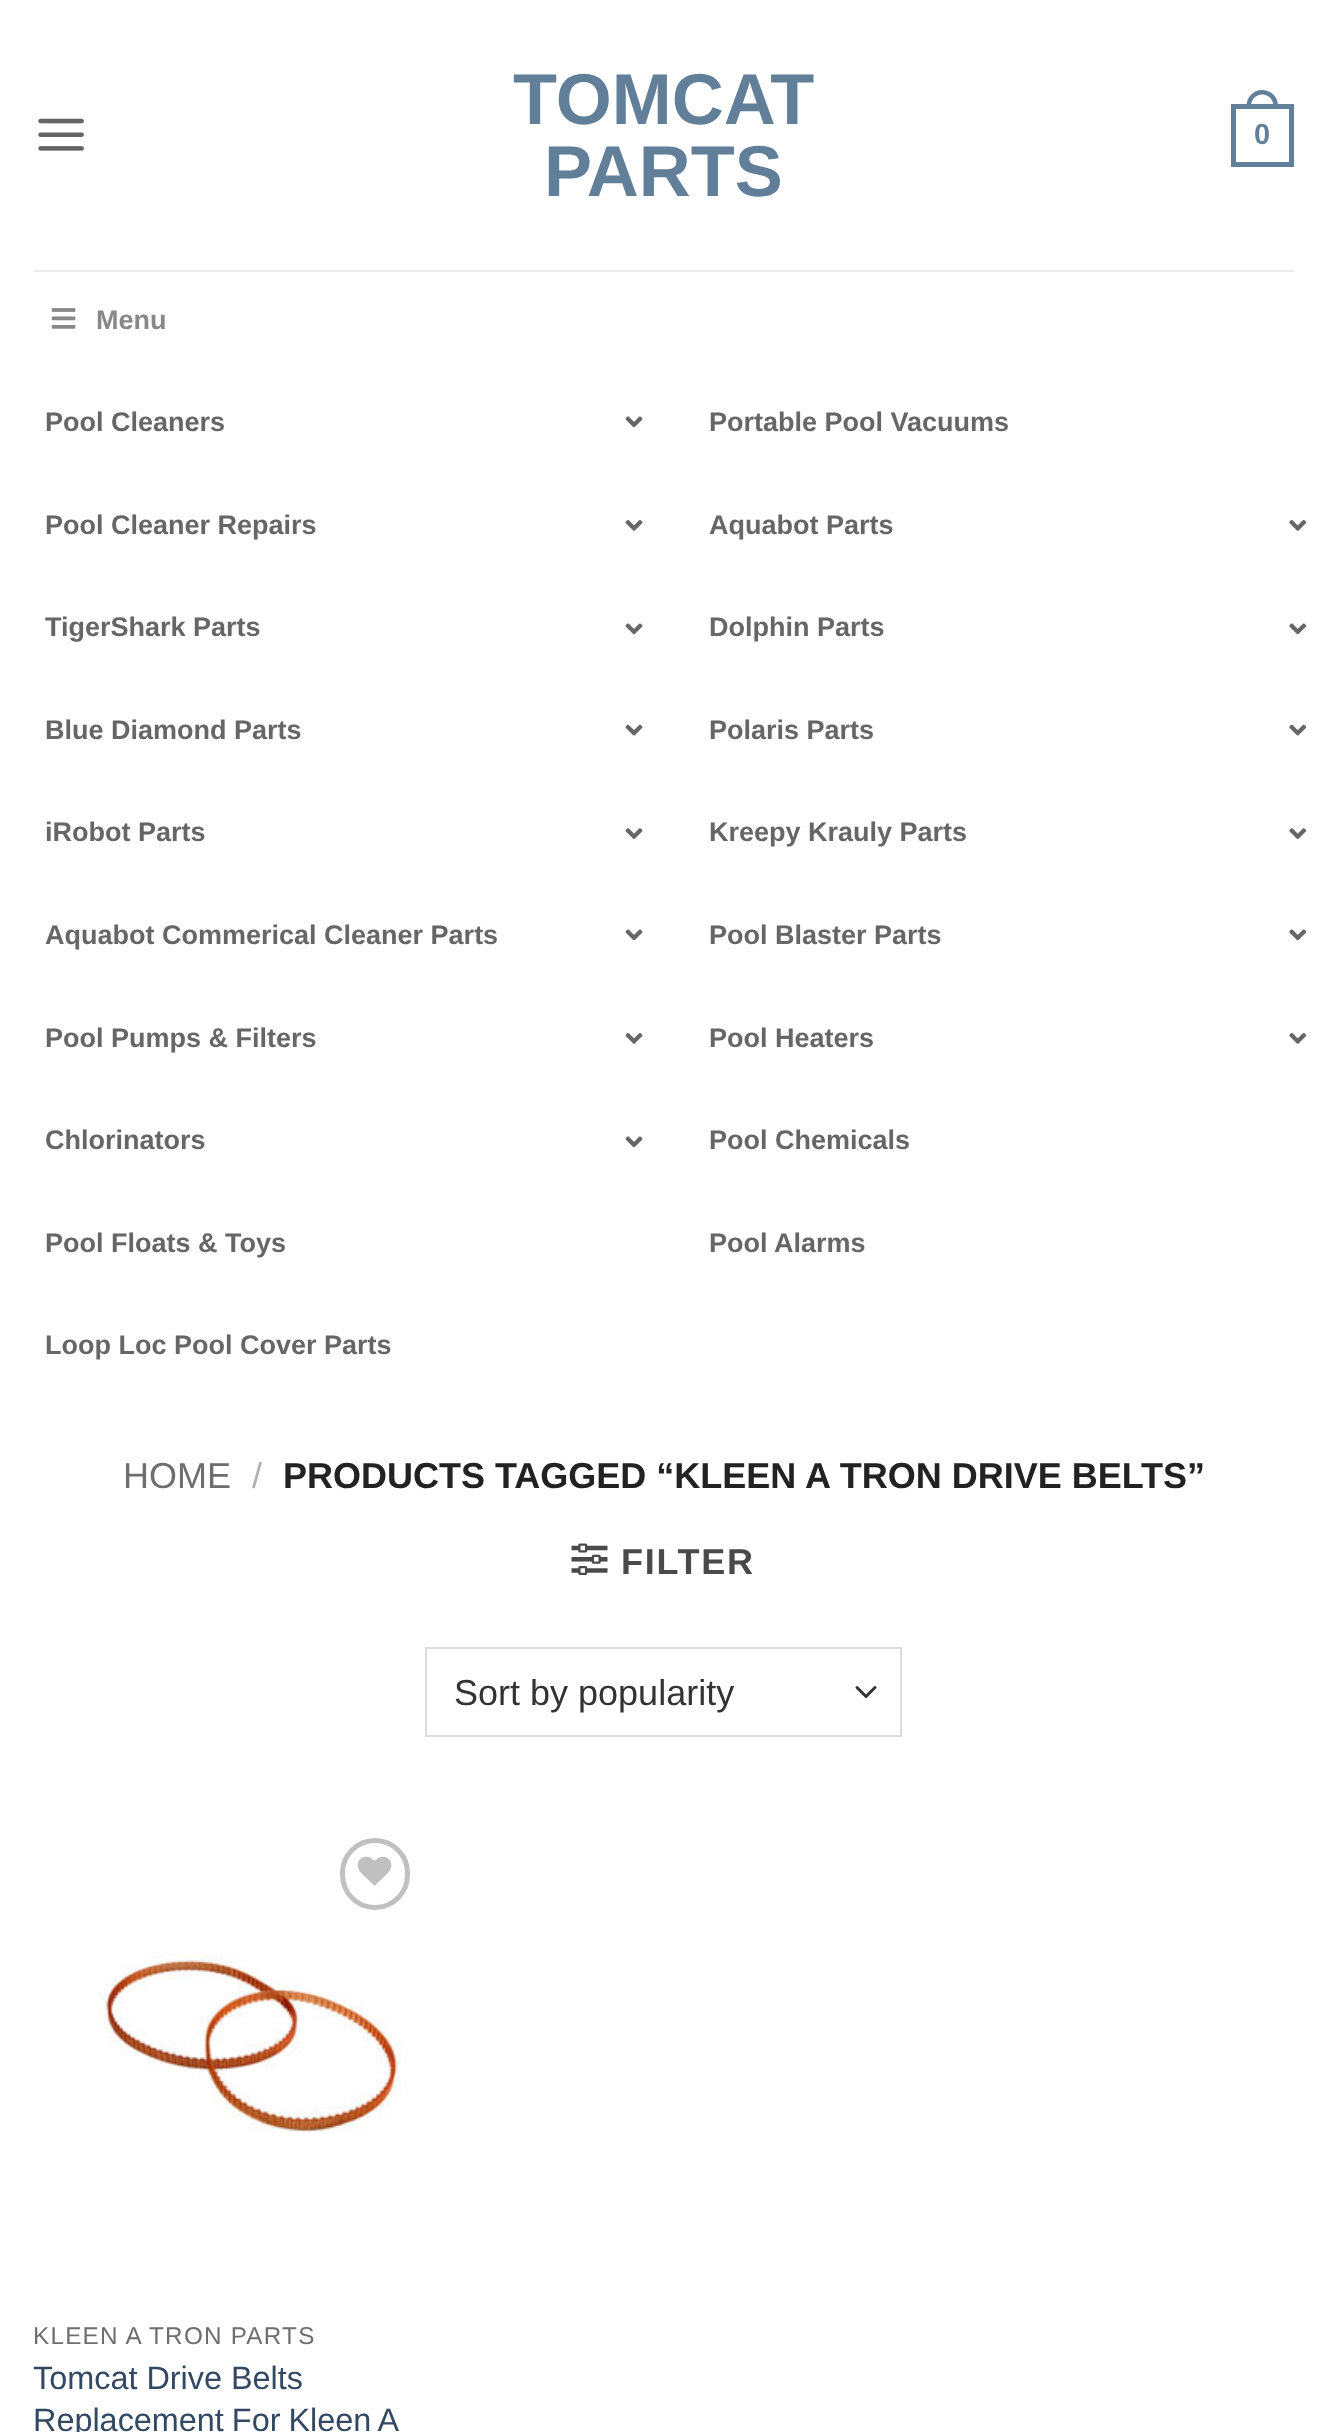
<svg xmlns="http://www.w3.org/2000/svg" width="1327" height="2432">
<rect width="100%" height="100%" fill="#fff"/>
<image x="38" y="118" width="46" height="33" href="media/1.png"/>
<text x="513" y="124" style="font-family:Liberation Sans;font-size:72px;font-weight:bold;fill:#627f9a">TOMCAT</text>
<text x="544" y="196" style="font-family:Liberation Sans;font-size:72px;font-weight:bold;fill:#627f9a">PARTS</text>
<rect x="1233.5" y="106.5" width="58" height="58" fill="none" stroke="#627f9a" stroke-width="5"/>
<path d="M1262 90c9 0 16 7 16 16v2h-31.5v-2c0-9 7-16 15.5-16zm0 4.5c6.5 0 11.5 5 11.5 11.5v2h-22.5v-2c0-6.5 5-11.5 11-11.5z" fill="#627f9a" fill-rule="evenodd"/>
<text x="1254" y="144" style="font-family:Liberation Sans;font-size:29px;font-weight:bold;fill:#627f9a">0</text>
<rect x="34" y="270" width="1260" height="2" fill="#ededed"/>
<image x="51" y="308" width="25" height="21" href="media/2.png"/>
<text x="96" y="329" style="font-family:Liberation Sans;font-size:27px;font-weight:bold;fill:#888">Menu</text>
<text x="45" y="431" style="font-family:Liberation Sans;font-size:27px;font-weight:bold;fill:#666">Pool Cleaners</text>
<image x="625" y="416" width="18" height="12" href="media/3.png"/>
<text x="709" y="431" style="font-family:Liberation Sans;font-size:27px;font-weight:bold;fill:#666">Portable Pool Vacuums</text>
<text x="45" y="534" style="font-family:Liberation Sans;font-size:27px;font-weight:bold;fill:#666">Pool Cleaner Repairs</text>
<image x="625" y="520" width="18" height="11" href="media/4.png"/>
<text x="709" y="534" style="font-family:Liberation Sans;font-size:27px;font-weight:bold;fill:#666">Aquabot Parts</text>
<image x="1289" y="520" width="18" height="11" href="media/5.png"/>
<text x="45" y="636" style="font-family:Liberation Sans;font-size:27px;font-weight:bold;fill:#666">TigerShark Parts</text>
<image x="625" y="623" width="18" height="12" href="media/3.png"/>
<text x="709" y="636" style="font-family:Liberation Sans;font-size:27px;font-weight:bold;fill:#666">Dolphin Parts</text>
<image x="1289" y="623" width="18" height="12" href="media/6.png"/>
<text x="45" y="739" style="font-family:Liberation Sans;font-size:27px;font-weight:bold;fill:#666">Blue Diamond Parts</text>
<image x="625" y="724" width="18" height="12" href="media/7.png"/>
<text x="709" y="739" style="font-family:Liberation Sans;font-size:27px;font-weight:bold;fill:#666">Polaris Parts</text>
<image x="1289" y="724" width="18" height="12" href="media/8.png"/>
<text x="45" y="841" style="font-family:Liberation Sans;font-size:27px;font-weight:bold;fill:#666">iRobot Parts</text>
<image x="625" y="828" width="18" height="11" href="media/9.png"/>
<text x="709" y="841" style="font-family:Liberation Sans;font-size:27px;font-weight:bold;fill:#666">Kreepy Krauly Parts</text>
<image x="1289" y="828" width="18" height="11" href="media/10.png"/>
<text x="45" y="944" style="font-family:Liberation Sans;font-size:27px;font-weight:bold;fill:#666">Aquabot Commerical Cleaner Parts</text>
<image x="625" y="929" width="18" height="12" href="media/3.png"/>
<text x="709" y="944" style="font-family:Liberation Sans;font-size:27px;font-weight:bold;fill:#666">Pool Blaster Parts</text>
<image x="1289" y="929" width="18" height="12" href="media/6.png"/>
<text x="45" y="1047" style="font-family:Liberation Sans;font-size:27px;font-weight:bold;fill:#666">Pool Pumps &amp; Filters</text>
<image x="625" y="1033" width="18" height="11" href="media/4.png"/>
<text x="709" y="1047" style="font-family:Liberation Sans;font-size:27px;font-weight:bold;fill:#666">Pool Heaters</text>
<image x="1289" y="1033" width="18" height="11" href="media/5.png"/>
<text x="45" y="1149" style="font-family:Liberation Sans;font-size:27px;font-weight:bold;fill:#666">Chlorinators</text>
<image x="625" y="1136" width="18" height="12" href="media/3.png"/>
<text x="709" y="1149" style="font-family:Liberation Sans;font-size:27px;font-weight:bold;fill:#666">Pool Chemicals</text>
<text x="45" y="1252" style="font-family:Liberation Sans;font-size:27px;font-weight:bold;fill:#666">Pool Floats &amp; Toys</text>
<text x="709" y="1252" style="font-family:Liberation Sans;font-size:27px;font-weight:bold;fill:#666">Pool Alarms</text>
<text x="45" y="1354" style="font-family:Liberation Sans;font-size:27px;font-weight:bold;fill:#666">Loop Loc Pool Cover Parts</text>
<text x="123" y="1488" style="font-family:Liberation Sans;font-size:36px;fill:#6e6e6e">HOME</text>
<text x="252" y="1488" style="font-family:Liberation Sans;font-size:36px;fill:#b2b2b2">/</text>
<text x="283" y="1488" style="font-family:Liberation Sans;font-size:36px;font-weight:bold;fill:#222">PRODUCTS TAGGED “KLEEN A TRON DRIVE BELTS”</text>
<image x="571" y="1543" width="37" height="32" href="media/11.png"/>
<text x="621" y="1574" style="font-family:Liberation Sans;font-size:36px;font-weight:bold;letter-spacing:1.75px;fill:#4a4a4a">FILTER</text>
<path d="M857 1687.5l9 9l9-9" fill="none" stroke="#333" stroke-width="3" stroke-linecap="round" stroke-linejoin="round"/>
<rect x="426" y="1648" width="475" height="88" fill="none" stroke="#ddd" stroke-width="2"/>
<text x="454" y="1705" style="font-family:Liberation Sans;font-size:36px;fill:#333">Sort by popularity</text>
<rect x="342.5" y="1840.5" width="65" height="67" rx="32.5" fill="none" stroke="#c0c0c0" stroke-width="5"/>
<image x="357" y="1856" width="35" height="30" href="media/12.png"/>
<image x="97" y="1954" width="305" height="179" href="media/13.png"/>
<text x="33" y="2344" style="font-family:Liberation Sans;font-size:24.25px;letter-spacing:1.25px;fill:#6e6e6e">KLEEN A TRON PARTS</text>
<text x="33" y="2389" style="font-family:Liberation Sans;font-size:32.4px;fill:#334862">Tomcat Drive Belts</text>
<text x="33" y="2431" word-spacing="-1" style="font-family:Liberation Sans;font-size:32.4px;fill:#334862">Replacement For Kleen A</text>
</svg>
